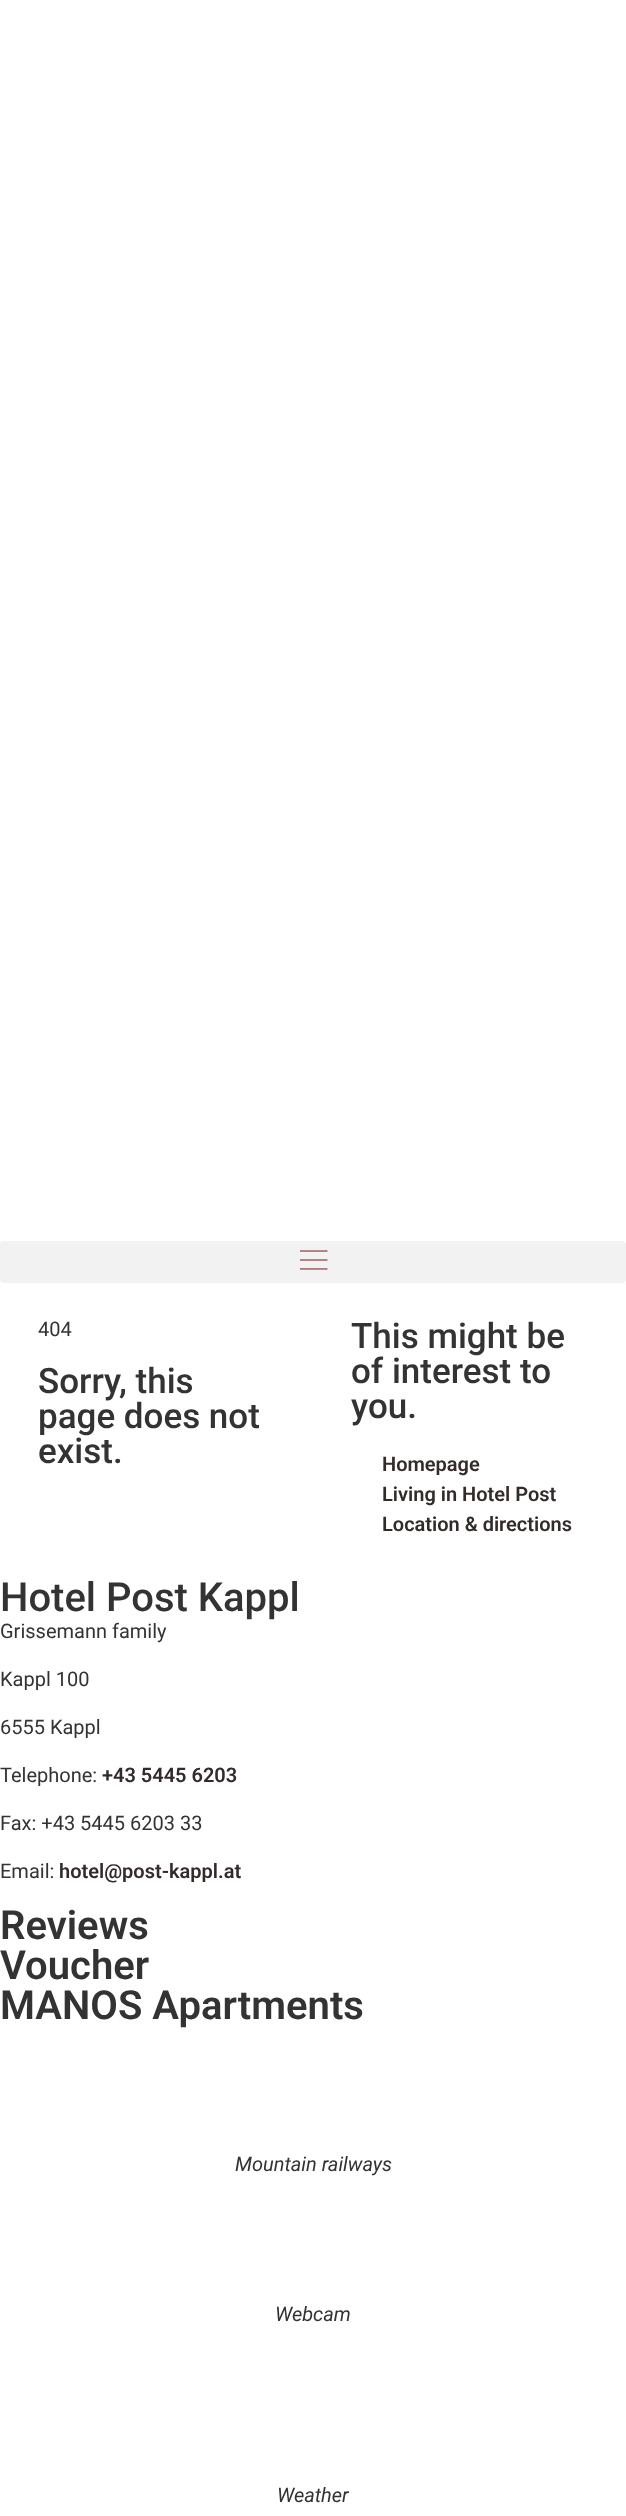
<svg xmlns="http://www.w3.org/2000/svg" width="626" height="2516">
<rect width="100%" height="100%" fill="#fff"/>
<rect y="1241" width="626" height="42" rx="4" fill="#f2f2f2"/>
<image x="300" y="1250" width="28" height="20" href="media/1.png"/>
<text x="38" y="1336" style="font-family:Roboto;font-size:20px;fill:#333">404</text>
<text x="38" y="1393" style="font-family:Roboto;font-size:35px;font-weight:500;fill:#333">Sorry, this</text>
<text x="38" y="1428" style="font-family:Roboto;font-size:35px;font-weight:500;fill:#333">page does not</text>
<text x="38" y="1463" style="font-family:Roboto;font-size:35px;font-weight:500;fill:#333">exist.</text>
<text x="351" y="1348" style="font-family:Roboto;font-size:35px;font-weight:500;fill:#333">This might be</text>
<text x="351" y="1383" style="font-family:Roboto;font-size:35px;font-weight:500;fill:#333">of interest to</text>
<text x="351" y="1418" style="font-family:Roboto;font-size:35px;font-weight:500;fill:#333">you.</text>
<text x="382" y="1471" style="font-family:Roboto;font-size:20px;font-weight:600;fill:#332a2a">Homepage</text>
<text x="382" y="1501" style="font-family:Roboto;font-size:20px;font-weight:600;fill:#332a2a">Living in Hotel Post</text>
<text x="382" y="1531" style="font-family:Roboto;font-size:20px;font-weight:600;fill:#332a2a">Location &amp; directions</text>
<text x="0" y="1611" style="font-family:Roboto;font-size:40px;font-weight:500;fill:#333">Hotel Post Kappl</text>
<text x="0" y="1638" style="font-family:Roboto;font-size:20px;fill:#333">Grissemann family</text>
<text x="0" y="1686" style="font-family:Roboto;font-size:20px;fill:#333">Kappl 100</text>
<text x="0" y="1734" style="font-family:Roboto;font-size:20px;fill:#333">6555 Kappl</text>
<text x="0" y="1782" style="font-family:Roboto;font-size:20px;fill:#333">Telephone:</text>
<text x="102" y="1782" style="font-family:Roboto;font-size:20px;font-weight:600;fill:#332a2a">+43 5445 6203</text>
<text x="0" y="1830" style="font-family:Roboto;font-size:20px;fill:#333">Fax: +43 5445 6203 33</text>
<text x="0" y="1878" style="font-family:Roboto;font-size:20px;fill:#333">Email:</text>
<text x="59" y="1878" style="font-family:Roboto;font-size:20px;font-weight:600;fill:#332a2a">hotel@post-kappl.at</text>
<text x="0" y="1939" style="font-family:Roboto;font-size:40px;font-weight:600;fill:#333">Reviews</text>
<text x="0" y="1979" style="font-family:Roboto;font-size:40px;font-weight:600;fill:#333">Voucher</text>
<text x="0" y="2019" style="font-family:Roboto;font-size:40px;font-weight:600;fill:#333">MANOS Apartments</text>
<text x="235" y="2171" style="font-family:Roboto;font-size:20px;font-style:italic;fill:#333">Mountain railways</text>
<text x="275" y="2321" style="font-family:Roboto;font-size:20px;font-style:italic;fill:#333">Webcam</text>
<text x="277" y="2502" style="font-family:Roboto;font-size:20px;font-style:italic;fill:#333">Weather</text>
</svg>
